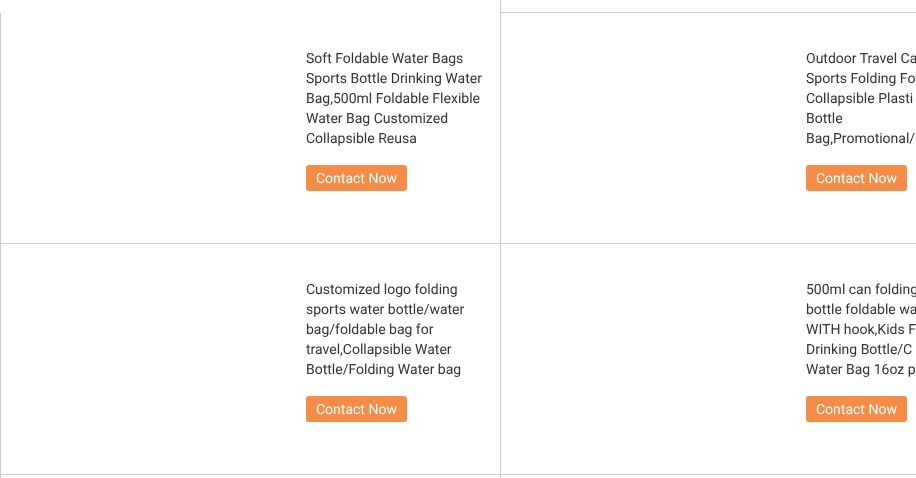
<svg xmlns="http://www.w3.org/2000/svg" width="916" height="478">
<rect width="100%" height="100%" fill="#fff"/>
<rect x="500" y="12" width="416" height="1" fill="#ccc"/>
<rect x="500" width="1" height="13" fill="#ccc"/>
<rect y="243" width="916" height="1" fill="#ccc"/>
<rect y="13" width="1" height="231" fill="#ccc"/>
<text x="306" y="63" style="font-family:Roboto;font-size:14px;fill:#333">Soft Foldable Water Bags</text>
<text x="306" y="83" style="font-family:Roboto;font-size:14px;fill:#333">Sports Bottle Drinking Water</text>
<text x="306" y="103" style="font-family:Roboto;font-size:14px;fill:#333">Bag,500ml Foldable Flexible</text>
<text x="306" y="123" style="font-family:Roboto;font-size:14px;fill:#333">Water Bag Customized</text>
<text x="306" y="143" style="font-family:Roboto;font-size:14px;fill:#333">Collapsible Reusa</text>
<rect x="306" y="165" width="101" height="26" rx="3" fill="#f58d49"/>
<text x="316" y="183" style="font-family:Roboto;font-size:14px;fill:#fff">Contact Now</text>
<rect x="500" y="13" width="1" height="231" fill="#ccc"/>
<text x="806" y="63" style="font-family:Roboto;font-size:14px;fill:#333">Outdoor Travel Ca</text>
<text x="806" y="83" style="font-family:Roboto;font-size:14px;fill:#333">Sports Folding Fo</text>
<text x="806" y="103" style="font-family:Roboto;font-size:14px;fill:#333">Collapsible Plasti</text>
<text x="806" y="123" style="font-family:Roboto;font-size:14px;fill:#333">Bottle</text>
<text x="806" y="143" style="font-family:Roboto;font-size:14px;fill:#333">Bag,Promotional/</text>
<rect x="806" y="165" width="101" height="26" rx="3" fill="#f58d49"/>
<text x="816" y="183" style="font-family:Roboto;font-size:14px;fill:#fff">Contact Now</text>
<rect y="474" width="916" height="1" fill="#ccc"/>
<rect y="244" width="1" height="234" fill="#ccc"/>
<text x="306" y="294" style="font-family:Roboto;font-size:14px;fill:#333">Customized logo folding</text>
<text x="306" y="314" style="font-family:Roboto;font-size:14px;fill:#333">sports water bottle/water</text>
<text x="306" y="334" style="font-family:Roboto;font-size:14px;fill:#333">bag/foldable bag for</text>
<text x="306" y="354" style="font-family:Roboto;font-size:14px;fill:#333">travel,Collapsible Water</text>
<text x="306" y="374" style="font-family:Roboto;font-size:14px;fill:#333">Bottle/Folding Water bag</text>
<rect x="306" y="396" width="101" height="26" rx="3" fill="#f58d49"/>
<text x="316" y="414" style="font-family:Roboto;font-size:14px;fill:#fff">Contact Now</text>
<rect x="500" y="244" width="1" height="234" fill="#ccc"/>
<text x="806" y="294" style="font-family:Roboto;font-size:14px;fill:#333">500ml can folding</text>
<text x="806" y="314" style="font-family:Roboto;font-size:14px;fill:#333">bottle foldable wa</text>
<text x="806" y="334" style="font-family:Roboto;font-size:14px;fill:#333">WITH hook,Kids F</text>
<text x="806" y="354" style="font-family:Roboto;font-size:14px;fill:#333">Drinking Bottle/C</text>
<text x="806" y="374" style="font-family:Roboto;font-size:14px;fill:#333">Water Bag 16oz p</text>
<rect x="806" y="396" width="101" height="26" rx="3" fill="#f58d49"/>
<text x="816" y="414" style="font-family:Roboto;font-size:14px;fill:#fff">Contact Now</text>
</svg>
